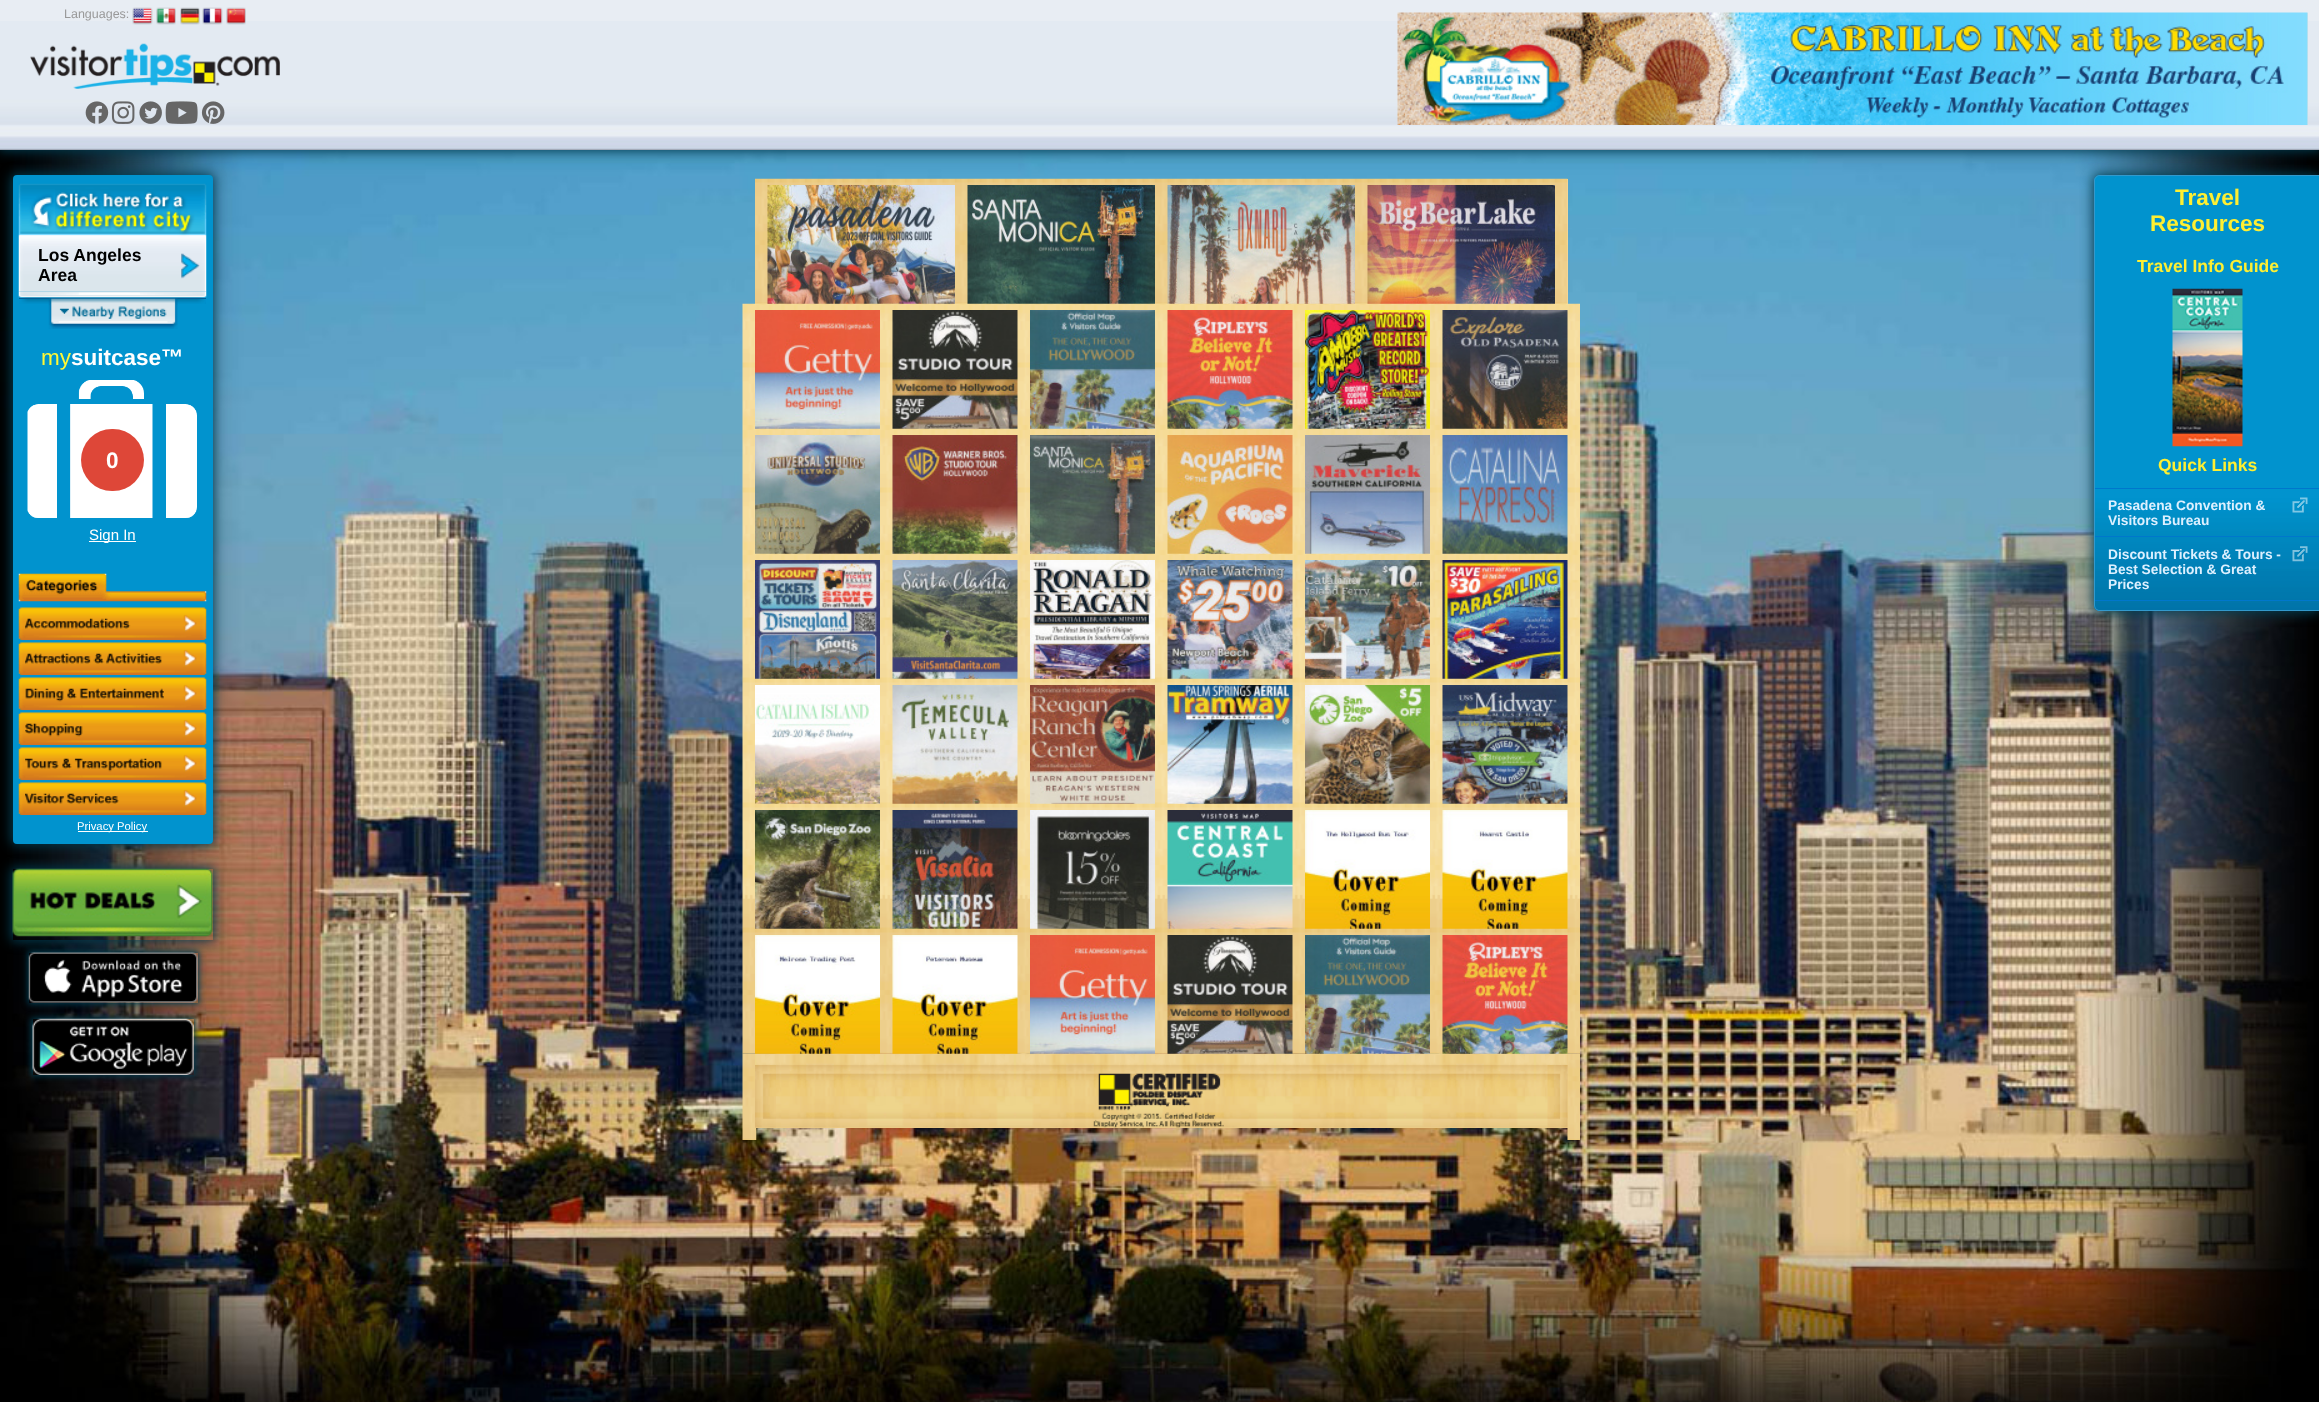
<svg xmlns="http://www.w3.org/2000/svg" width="2319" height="1402">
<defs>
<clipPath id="clip1"><path d="M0 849h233v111h-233zm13 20h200v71h-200z" clip-rule="evenodd"/></clipPath>
<clipPath id="clip2"><path d="M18 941h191v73h-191zm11 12h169v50h-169z" clip-rule="evenodd"/></clipPath>
<clipPath id="clip3"><path d="M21 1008h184v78h-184zm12 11h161v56h-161z" clip-rule="evenodd"/></clipPath>
</defs>
<rect width="100%" height="100%" fill="#fff"/>
<image x="0" y="150" width="2319" height="1252" href="media/14.png"/>
<rect x="-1" y="-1" width="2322" height="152" fill="#003c50" filter="blur(6px)"/>
<rect width="2319" height="21" fill="#e8edf3"/>
<image x="0" y="21" width="2319" height="129" href="media/1.png"/>
<text x="64" y="18" style="font-family:Liberation Sans;font-size:12.5px;fill:#999">Languages:</text>
<image x="132" y="7" width="21" height="18" href="media/2.png"/>
<image x="156" y="7" width="20" height="18" href="media/3.png"/>
<image x="180" y="7" width="20" height="18" href="media/4.png"/>
<image x="202" y="7" width="21" height="18" href="media/5.png"/>
<image x="226" y="7" width="20" height="18" href="media/6.png"/>
<rect x="2307" y="13" width="1" height="112" fill="#e1e1e1"/>
<image x="1397" y="12" width="911" height="113" href="media/7.png"/>
<image x="30" y="43" width="250" height="46" href="media/8.png"/>
<image x="85" y="101" width="24" height="23" href="media/9.png"/>
<image x="111" y="101" width="24" height="23" href="media/10.png"/>
<image x="139" y="101" width="23" height="23" href="media/11.png"/>
<image x="165" y="101" width="33" height="23" href="media/12.png"/>
<image x="201" y="101" width="24" height="23" href="media/13.png"/>
<rect x="11" y="174" width="203" height="671" rx="5" fill="#003c50" filter="blur(6px)"/>
<rect x="14.5" y="176.5" width="197" height="666" rx="2.5" fill="#0193ce" stroke="#0193ce" stroke-width="3"/>
<image x="18" y="291" width="189" height="7" href="media/15.png"/>
<image x="18" y="183" width="189" height="109" href="media/16.png"/>
<image x="181" y="253" width="19" height="26" href="media/17.png"/>
<text x="38" y="261" style="font-family:Liberation Sans;font-size:17.5px;font-weight:bold;fill:#000">Los Angeles</text>
<text x="38" y="281" style="font-family:Liberation Sans;font-size:17.5px;font-weight:bold;fill:#000">Area</text>
<image x="19" y="297" width="187" height="7" href="media/18.png"/>
<rect x="19" y="298" width="187" height="1" fill="#005e97"/>
<image x="48" y="298" width="130" height="31" href="media/19.png"/>
<text x="41" y="365" style="font-family:Liberation Sans;font-size:22.5px;fill:#fff835">my</text>
<text x="71" y="365" style="font-family:Liberation Sans;font-size:22.5px;font-weight:bold;fill:#fff">suitcase™</text>
<image x="27" y="380" width="170" height="138" href="media/20.png"/>
<rect x="81" y="429" width="63" height="62" rx="31" fill="#de4738"/>
<text x="106" y="468" style="font-family:Liberation Sans;font-size:22.5px;font-weight:bold;fill:#fff">0</text>
<rect x="89" y="541" width="47" height="1" fill="#fff"/>
<text x="89" y="540" style="font-family:Liberation Sans;font-size:15px;fill:#fff">Sign In</text>
<image x="18" y="573" width="189" height="29" href="media/21.png"/>
<image x="18" y="607" width="189" height="33" href="media/22.png"/>
<image x="25" y="618" width="106" height="11" href="media/23.png"/>
<image x="18" y="642" width="189" height="33" href="media/22.png"/>
<image x="25" y="653" width="137" height="11" href="media/24.png"/>
<image x="18" y="677" width="189" height="33" href="media/22.png"/>
<image x="25" y="688" width="139" height="14" href="media/25.png"/>
<image x="18" y="712" width="189" height="33" href="media/22.png"/>
<image x="25" y="723" width="58" height="14" href="media/26.png"/>
<image x="18" y="747" width="189" height="33" href="media/22.png"/>
<image x="25" y="758" width="137" height="14" href="media/27.png"/>
<image x="18" y="782" width="189" height="33" href="media/22.png"/>
<image x="25" y="793" width="94" height="11" href="media/28.png"/>
<rect x="78" y="831" width="70" height="1" fill="#fff"/>
<text x="77" y="830" style="font-family:Liberation Sans;font-size:11.25px;fill:#fff">Privacy Policy</text>
<g clip-path="url(#clip1)">
<rect x="11" y="868" width="203" height="73" fill="#003c50" filter="blur(6px)"/>
</g>
<image x="12" y="868" width="201" height="69" href="media/29.png"/>
<g clip-path="url(#clip2)">
<rect x="28" y="951" width="171" height="53" fill="#003c50" filter="blur(3px)"/>
</g>
<image x="28" y="952" width="170" height="51" href="media/30.png"/>
<g clip-path="url(#clip3)">
<rect x="31" y="1018" width="164" height="58" fill="#003c50" filter="blur(3px)"/>
</g>
<image x="32" y="1018" width="162" height="57" href="media/31.png"/>
<rect x="755" y="179" width="813" height="125" fill="#f6dfa2"/>
<image x="755" y="178" width="813" height="126" href="media/32.png"/>
<image x="742" y="303" width="838" height="751" href="media/37.png"/>
<image x="767" y="185" width="188" height="119" href="media/33.png"/>
<image x="967" y="185" width="188" height="119" href="media/34.png"/>
<image x="1167" y="185" width="188" height="119" href="media/35.png"/>
<image x="1367" y="185" width="188" height="119" href="media/36.png"/>
<image x="755" y="310" width="125" height="119" href="media/38.png"/>
<image x="892" y="310" width="126" height="119" href="media/39.png"/>
<image x="1030" y="310" width="125" height="119" href="media/40.png"/>
<image x="1167" y="310" width="126" height="119" href="media/41.png"/>
<image x="1305" y="310" width="125" height="119" href="media/42.png"/>
<image x="1442" y="310" width="126" height="119" href="media/43.png"/>
<image x="755" y="435" width="125" height="119" href="media/44.png"/>
<image x="892" y="435" width="126" height="119" href="media/45.png"/>
<image x="1030" y="435" width="125" height="119" href="media/46.png"/>
<image x="1167" y="435" width="126" height="119" href="media/47.png"/>
<image x="1305" y="435" width="125" height="119" href="media/48.png"/>
<image x="1442" y="435" width="126" height="119" href="media/49.png"/>
<image x="755" y="560" width="125" height="119" href="media/50.png"/>
<image x="892" y="560" width="126" height="119" href="media/51.png"/>
<image x="1030" y="560" width="125" height="119" href="media/52.png"/>
<image x="1167" y="560" width="126" height="119" href="media/53.png"/>
<image x="1305" y="560" width="125" height="119" href="media/54.png"/>
<image x="1442" y="560" width="126" height="119" href="media/55.png"/>
<image x="755" y="685" width="125" height="119" href="media/56.png"/>
<image x="892" y="685" width="126" height="119" href="media/57.png"/>
<image x="1030" y="685" width="125" height="119" href="media/58.png"/>
<image x="1167" y="685" width="126" height="119" href="media/59.png"/>
<image x="1305" y="685" width="125" height="119" href="media/60.png"/>
<image x="1442" y="685" width="126" height="119" href="media/61.png"/>
<image x="755" y="810" width="125" height="119" href="media/62.png"/>
<image x="892" y="810" width="126" height="119" href="media/63.png"/>
<image x="1030" y="810" width="125" height="119" href="media/64.png"/>
<image x="1167" y="810" width="126" height="119" href="media/65.png"/>
<image x="1305" y="810" width="125" height="119" href="media/66.png"/>
<image x="1442" y="810" width="126" height="119" href="media/67.png"/>
<image x="742" y="1053" width="15" height="87" href="media/74.png"/>
<image x="1567" y="1054" width="13" height="86" href="media/75.png"/>
<rect x="755" y="1054" width="813" height="74" fill="#eecd86"/>
<image x="755" y="1053" width="813" height="75" href="media/76.png"/>
<image x="755" y="935" width="125" height="119" href="media/68.png"/>
<image x="892" y="935" width="126" height="119" href="media/69.png"/>
<image x="1030" y="935" width="125" height="119" href="media/70.png"/>
<image x="1167" y="935" width="126" height="119" href="media/71.png"/>
<image x="1305" y="935" width="125" height="119" href="media/72.png"/>
<image x="1442" y="935" width="126" height="119" href="media/73.png"/>
<image x="755" y="1065" width="21" height="63" href="media/77.png"/>
<image x="1547" y="1065" width="21" height="63" href="media/78.png"/>
<image x="1093" y="1073" width="131" height="55" href="media/79.png"/>
<rect x="2093" y="174" width="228" height="439" rx="8" fill="#003c50" filter="blur(6px)"/>
<path d="M2100 175h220v436h-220c-3.5 0-6-2.5-6-6v-424c0-3.5 2.5-6 6-6z" fill="#0193ce"/>
<image x="2093" y="498" width="226" height="112" href="media/80.png"/>
<path d="M2100 175h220v436h-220c-3 0-6-3-6-6v-424c0-3 3-6 6-6zm0 1h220v434h-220c-3 0-5-2-5-5v-424c0-3 2-5 5-5z" fill="#39c" fill-rule="evenodd"/>
<text x="2175" y="205" style="font-family:Liberation Sans;font-size:22.5px;font-weight:bold;fill:#feef32">Travel</text>
<text x="2150" y="231" style="font-family:Liberation Sans;font-size:22.5px;font-weight:bold;fill:#feef32">Resources</text>
<text x="2137" y="272" style="font-family:Liberation Sans;font-size:17.5px;font-weight:bold;fill:#feef32">Travel Info Guide</text>
<image x="2172" y="288" width="71" height="159" href="media/81.png"/>
<text x="2158" y="471" style="font-family:Liberation Sans;font-size:17.5px;font-weight:bold;fill:#feef32">Quick Links</text>
<rect x="2095" y="488" width="224" height="1" fill="#07c"/>
<rect x="2095" y="536" width="224" height="1" fill="#07c"/>
<text x="2108" y="510" style="font-family:Liberation Sans;font-size:13.75px;font-weight:bold;fill:#ddf0ff">Pasadena Convention &amp;</text>
<text x="2108" y="525" style="font-family:Liberation Sans;font-size:13.75px;font-weight:bold;fill:#ddf0ff">Visitors Bureau</text>
<image x="2292" y="497" width="16" height="16" href="media/82.png"/>
<rect x="2095" y="600" width="224" height="1" fill="#07c"/>
<text x="2108" y="559" style="font-family:Liberation Sans;font-size:13.75px;font-weight:bold;fill:#ddf0ff">Discount Tickets &amp; Tours -</text>
<text x="2108" y="574" style="font-family:Liberation Sans;font-size:13.75px;font-weight:bold;fill:#ddf0ff">Best Selection &amp; Great</text>
<text x="2108" y="589" style="font-family:Liberation Sans;font-size:13.75px;font-weight:bold;fill:#ddf0ff">Prices</text>
<image x="2292" y="546" width="16" height="16" href="media/83.png"/>
</svg>
